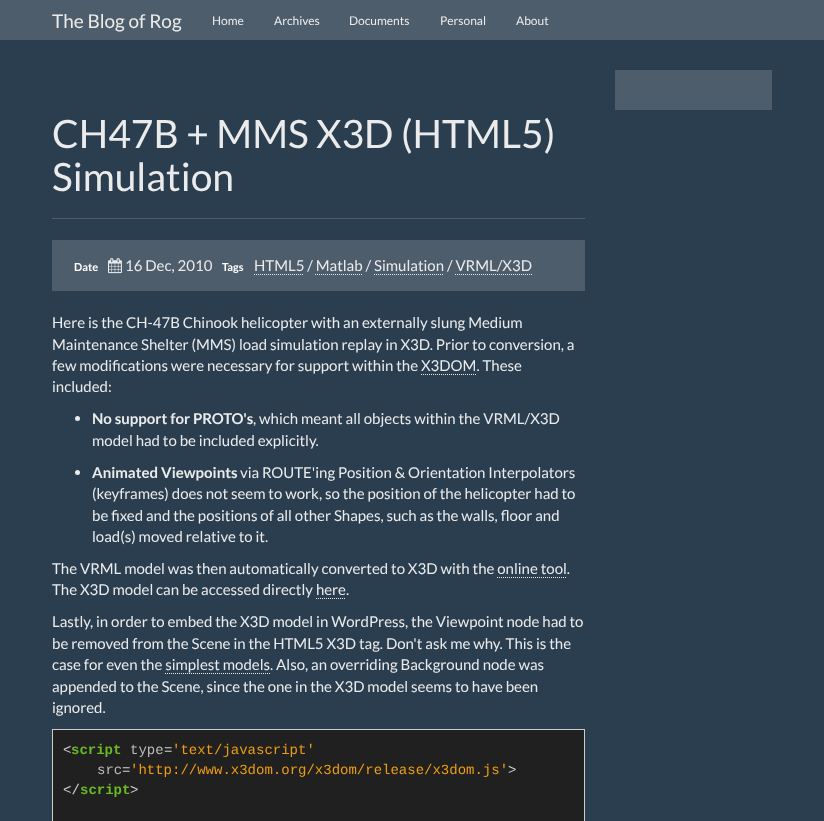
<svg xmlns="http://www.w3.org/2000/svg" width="824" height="821">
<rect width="100%" height="100%" fill="#2b3e50"/>
<rect width="824" height="40" fill="#4e5d6c"/>
<text x="52" y="28" style="font-family:Lato;font-size:19px;fill:#ebebeb">The Blog of Rog</text>
<text x="212" y="25" style="font-family:Lato;font-size:12px;fill:#ebebeb">Home</text>
<text x="274" y="25" style="font-family:Lato;font-size:12px;fill:#ebebeb">Archives</text>
<text x="349" y="25" style="font-family:Lato;font-size:12px;fill:#ebebeb">Documents</text>
<text x="440" y="25" style="font-family:Lato;font-size:12px;fill:#ebebeb">Personal</text>
<text x="516" y="25" style="font-family:Lato;font-size:12px;fill:#ebebeb">About</text>
<rect x="615" y="70" width="157" height="40" fill="#4e5d6c"/>
<rect x="52" y="218" width="533" height="1" fill="#4e5d6c"/>
<text x="52" y="148" style="font-family:Lato;font-size:39px;fill:#ebebeb">CH47B + MMS X3D (HTML5)</text>
<text x="52" y="191" style="font-family:Lato;font-size:39px;fill:#ebebeb">Simulation</text>
<rect x="52" y="240" width="533" height="51" fill="#4e5d6c"/>
<text x="74" y="271" style="font-family:Lato;font-size:11px;font-weight:bold;fill:#fff">Date</text>
<image x="108" y="258" width="14" height="16" href="media/1.png"/>
<text x="125" y="271" style="font-family:Lato;font-size:15px;fill:#ebebeb">16 Dec, 2010</text>
<text x="222" y="271" style="font-family:Lato;font-size:11px;font-weight:bold;fill:#fff">Tags</text>
<text x="254" y="271" style="font-family:Lato;font-size:15px;fill:#ebebeb">HTML5 / Matlab / Simulation / VRML/X3D</text>
<path d="M254 274.5h50" fill="none" stroke="#ebebeb" stroke-dasharray="1 1"/>
<path d="M315 274.5h47" fill="none" stroke="#ebebeb" stroke-dasharray="1 1"/>
<path d="M374 274.5h70" fill="none" stroke="#ebebeb" stroke-dasharray="1 1"/>
<path d="M455 274.5h77" fill="none" stroke="#ebebeb" stroke-dasharray="1 1"/>
<text x="52" y="328" style="font-family:Lato;font-size:15px;fill:#ebebeb">Here is the CH-47B Chinook helicopter with an externally slung Medium</text>
<text x="52" y="350" style="font-family:Lato;font-size:15px;fill:#ebebeb">Maintenance Shelter (MMS) load simulation replay in X3D. Prior to conversion, a</text>
<text x="52" y="371" style="font-family:Lato;font-size:15px;fill:#ebebeb">few modifications were necessary for support within the X3DOM. These</text>
<path d="M421 374.5h55" fill="none" stroke="#ebebeb" stroke-dasharray="1 1"/>
<text x="52" y="392" style="font-family:Lato;font-size:15px;fill:#ebebeb">included:</text>
<circle cx="77.5" cy="418.5" r="2.5" fill="#ebebeb"/>
<text x="92" y="424" style="font-family:Lato;font-size:15px;font-weight:bold;fill:#ebebeb">No support for PROTO's</text>
<text x="253" y="424" style="font-family:Lato;font-size:15px;fill:#ebebeb">, which meant all objects within the VRML/X3D</text>
<text x="92" y="446" style="font-family:Lato;font-size:15px;fill:#ebebeb">model had to be included explicitly.</text>
<circle cx="77.5" cy="472.5" r="2.5" fill="#ebebeb"/>
<text x="92" y="478" style="font-family:Lato;font-size:15px;font-weight:bold;fill:#ebebeb">Animated Viewpoints</text>
<text x="240" y="478" style="font-family:Lato;font-size:15px;fill:#ebebeb">via ROUTE'ing Position &amp; Orientation Interpolators</text>
<text x="92" y="499" style="font-family:Lato;font-size:15px;fill:#ebebeb">(keyframes) does not seem to work, so the position of the helicopter had to</text>
<text x="92" y="521" style="font-family:Lato;font-size:15px;fill:#ebebeb">be fixed and the positions of all other Shapes, such as the walls, floor and</text>
<text x="92" y="542" style="font-family:Lato;font-size:15px;fill:#ebebeb">load(s) moved relative to it.</text>
<text x="52" y="574" style="font-family:Lato;font-size:15px;fill:#ebebeb">The VRML model was then automatically converted to X3D with the online tool.</text>
<path d="M497 577.5h70" fill="none" stroke="#ebebeb" stroke-dasharray="1 1"/>
<text x="52" y="595" style="font-family:Lato;font-size:15px;fill:#ebebeb">The X3D model can be accessed directly here.</text>
<path d="M316 598.5h30" fill="none" stroke="#ebebeb" stroke-dasharray="1 1"/>
<text x="52" y="627" style="font-family:Lato;font-size:15px;fill:#ebebeb">Lastly, in order to embed the X3D model in WordPress, the Viewpoint node had to</text>
<text x="52" y="649" style="font-family:Lato;font-size:15px;fill:#ebebeb">be removed from the Scene in the HTML5 X3D tag. Don't ask me why. This is the</text>
<text x="52" y="670" style="font-family:Lato;font-size:15px;fill:#ebebeb">case for even the simplest models. Also, an overriding Background node was</text>
<path d="M165 673.5h105" fill="none" stroke="#ebebeb" stroke-dasharray="1 1"/>
<text x="52" y="692" style="font-family:Lato;font-size:15px;fill:#ebebeb">appended to the Scene, since the one in the X3D model seems to have been</text>
<text x="52" y="713" style="font-family:Lato;font-size:15px;fill:#ebebeb">ignored.</text>
<rect x="52.5" y="729.5" width="532" height="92" fill="#202020" stroke="#ccc"/>
<text x="63" y="754" style="font-family:Liberation Mono;font-size:14px;fill:#d0d0d0">&lt;</text>
<text x="71" y="754" style="font-family:Liberation Mono;font-size:14px;font-weight:bold;fill:#6ab825">script</text>
<text x="130" y="754" style="font-family:Liberation Mono;font-size:14px;fill:#bbb">type</text>
<text x="164" y="754" style="font-family:Liberation Mono;font-size:14px;fill:#d0d0d0">=</text>
<text x="172" y="754" style="font-family:Liberation Mono;font-size:14px;fill:#ed9d13">'text/javascript'</text>
<text x="97" y="774" style="font-family:Liberation Mono;font-size:14px;fill:#bbb">src</text>
<text x="122" y="774" style="font-family:Liberation Mono;font-size:14px;fill:#d0d0d0">=</text>
<text x="130" y="774" style="font-family:Liberation Mono;font-size:14px;fill:#ed9d13">'http://www.x3dom.org/x3dom/release/x3dom.js'</text>
<text x="508" y="774" style="font-family:Liberation Mono;font-size:14px;fill:#d0d0d0">&gt;</text>
<text x="63" y="794" style="font-family:Liberation Mono;font-size:14px;fill:#d0d0d0">&lt;/</text>
<text x="80" y="794" style="font-family:Liberation Mono;font-size:14px;font-weight:bold;fill:#6ab825">script</text>
<text x="130" y="794" style="font-family:Liberation Mono;font-size:14px;fill:#d0d0d0">&gt;</text>
</svg>
